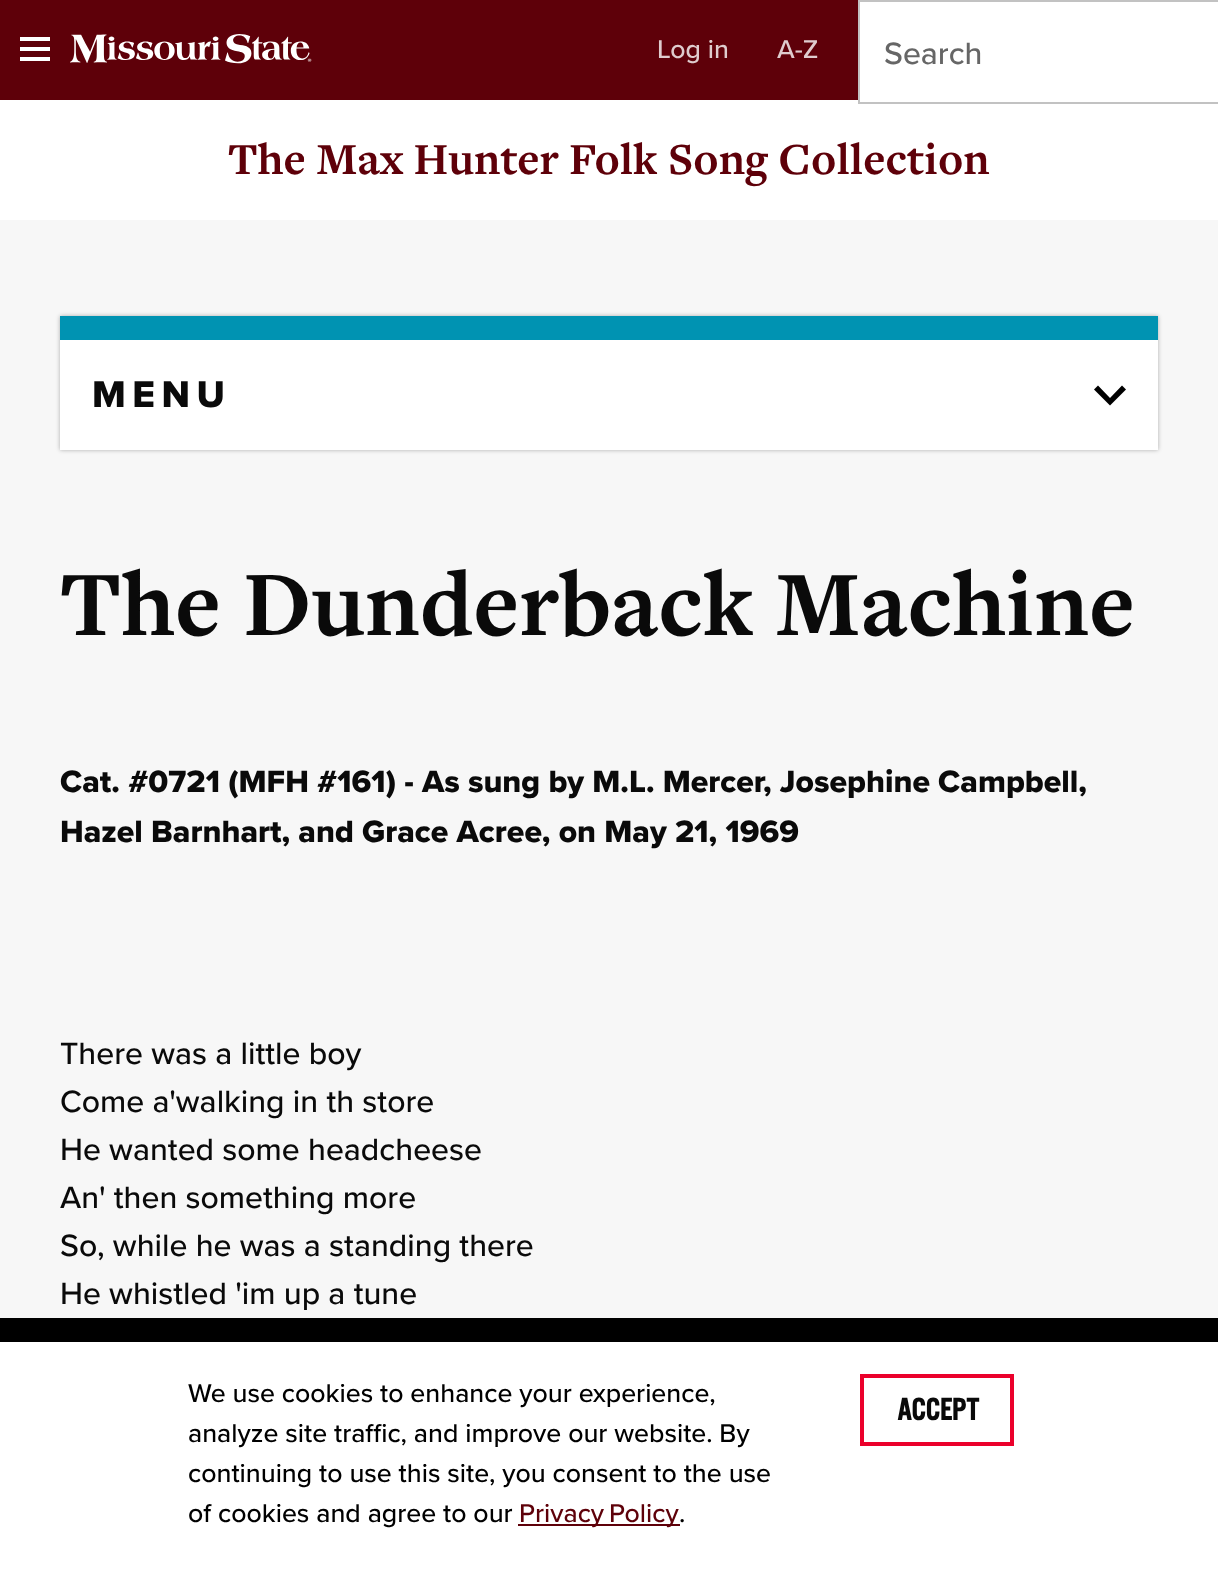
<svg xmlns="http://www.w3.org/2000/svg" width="1218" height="1574">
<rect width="100%" height="100%" fill="#f7f7f7"/>
<rect width="858" height="100" fill="#5e0009"/>
<image x="20" y="34" width="292" height="30" href="media/1.png"/>
<text x="657" y="58" style="font-family:Proxima Nova;font-size:26.7px;font-weight:500;fill:#dfccce">Log in</text>
<text x="777" y="58" style="font-family:Proxima Nova;font-size:26.7px;font-weight:500;fill:#dfccce">A-Z</text>
<rect x="860" y="2" width="358" height="98" fill="#fff"/>
<rect y="100" width="1218" height="120" fill="#fff"/>
<rect x="859" y="1" width="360" height="102" fill="none" stroke="#c2c2c2" stroke-width="2"/>
<text x="884" y="64" style="font-family:Proxima Nova;font-size:32px;font-weight:500;fill:#666">Search</text>
<text x="228" y="174" style="font-family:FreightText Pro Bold;font-size:46.1px;font-weight:bold;fill:#5e0009">The Max Hunter Folk Song Collection</text>
<rect x="60" y="316" width="1098" height="134" fill="#0000004d" filter="blur(2px)"/>
<rect x="60" y="340" width="1098" height="110" fill="#fff"/>
<rect x="60" y="316" width="1098" height="24" fill="#0093b2"/>
<text x="92" y="407" style="font-family:Proxima Nova;font-size:38.5px;font-weight:800;letter-spacing:6.5px;fill:#0a0a0a">MENU</text>
<path d="M1122 385.5l-12 12.5l-12-12.5l-4 4l16 16l16-16z" fill="#000" fill-rule="evenodd"/>
<text x="60" y="635" style="font-family:FreightText Pro Bold;font-size:95.5px;font-weight:bold;fill:#0a0a0a">The Dunderback Machine</text>
<text x="60" y="792" style="font-family:Proxima Nova;font-size:32px;font-weight:800;fill:#0a0a0a">Cat. #0721 (MFH #161) - As sung by M.L. Mercer, Josephine Campbell,</text>
<text x="60" y="842" style="font-family:Proxima Nova;font-size:32px;font-weight:800;fill:#0a0a0a">Hazel Barnhart, and Grace Acree, on May 21, 1969</text>
<text x="60" y="1064" style="font-family:Proxima Nova;font-size:32px;font-weight:500;fill:#0a0a0a">There was a little boy</text>
<text x="60" y="1112" style="font-family:Proxima Nova;font-size:32px;font-weight:500;fill:#0a0a0a">Come a'walking in th store</text>
<text x="60" y="1160" style="font-family:Proxima Nova;font-size:32px;font-weight:500;fill:#0a0a0a">He wanted some headcheese</text>
<text x="60" y="1208" style="font-family:Proxima Nova;font-size:32px;font-weight:500;fill:#0a0a0a">An' then something more</text>
<text x="60" y="1256" style="font-family:Proxima Nova;font-size:32px;font-weight:500;fill:#0a0a0a">So, while he was a standing there</text>
<text x="60" y="1304" style="font-family:Proxima Nova;font-size:32px;font-weight:500;fill:#0a0a0a">He whistled 'im up a tune</text>
<rect y="1342" width="1218" height="232" fill="#fff"/>
<rect y="1318" width="1218" height="24" fill="#000"/>
<text x="188" y="1402" style="font-family:Proxima Nova;font-size:26.7px;font-weight:500;fill:#000">We use cookies to enhance your experience,</text>
<text x="188" y="1442" style="font-family:Proxima Nova;font-size:26.7px;font-weight:500;fill:#000">analyze site traffic, and improve our website. By</text>
<text x="188" y="1482" style="font-family:Proxima Nova;font-size:26.7px;font-weight:500;fill:#000">continuing to use this site, you consent to the use</text>
<text x="188" y="1522" style="font-family:Proxima Nova;font-size:26.7px;font-weight:500;fill:#000">of cookies and agree to our</text>
<rect x="518" y="1524" width="162" height="2" fill="#5e0009"/>
<text x="519" y="1522" word-spacing="-2" style="font-family:Proxima Nova;font-size:26.7px;font-weight:500;fill:#5e0009">Privacy Policy</text>
<text x="679" y="1522" style="font-family:Proxima Nova;font-size:26.7px;font-weight:500;fill:#000">.</text>
<rect x="862" y="1376" width="150" height="68" fill="none" stroke="#eb002b" stroke-width="4"/>
<text x="897" y="1420" style="font-family:'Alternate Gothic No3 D';font-size:32px;font-weight:bold;fill:#0a0a0a">ACCEPT</text>
</svg>
